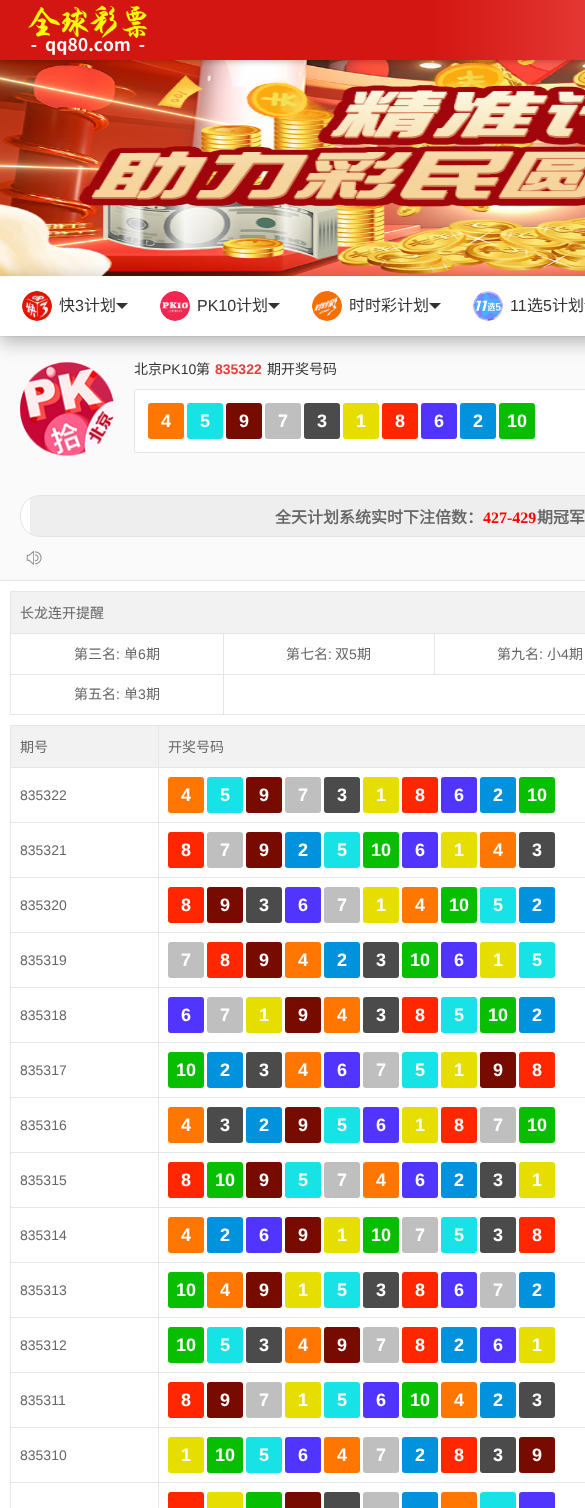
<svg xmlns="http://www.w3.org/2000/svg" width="585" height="1508">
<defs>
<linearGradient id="g1" gradientUnits="userSpaceOnUse" x1="0" y1="30" x2="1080" y2="30"><stop offset="0.4" stop-color="#d31611"/><stop offset="0.55" stop-color="#e53935"/></linearGradient>
<clipPath id="clip1"><rect x="21" y="496" width="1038" height="40" rx="19"/></clipPath>
</defs>
<rect width="100%" height="100%" fill="#fafafa"/>
<image x="0" y="60" width="585" height="216" href="media/2.png"/>
<rect y="2" width="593" height="60" fill="#00000033" filter="blur(2.5px)"/>
<rect width="585" height="60" fill="url(#g1)"/>
<image x="27" y="5" width="120" height="50" href="media/1.png"/>
<rect y="336" width="585" height="1" fill="#eee"/>
<image x="20" y="362" width="94" height="94" href="media/7.png"/>
<rect y="281" width="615" height="60" fill="#0000004d" filter="blur(10px)"/>
<rect y="276" width="585" height="60" fill="#fff"/>
<image x="22" y="291" width="30" height="30" href="media/3.png"/>
<text x="59" y="311" style="font-family:Noto Sans CJK SC;font-size:16px;fill:#333">快</text>
<text x="75" y="311" style="font-family:Liberation Sans;font-size:16px;fill:#333">3</text>
<text x="84" y="311" style="font-family:Noto Sans CJK SC;font-size:16px;fill:#333">计划</text>
<path d="M116 303h12l-6 6z" fill="#333"/>
<image x="160" y="291" width="30" height="30" href="media/4.png"/>
<text x="197" y="311" style="font-family:Liberation Sans;font-size:16px;fill:#333">PK10</text>
<text x="236" y="311" style="font-family:Noto Sans CJK SC;font-size:16px;fill:#333">计划</text>
<path d="M268 303h12l-6 6z" fill="#333"/>
<image x="312" y="291" width="30" height="30" href="media/5.png"/>
<text x="349" y="311" style="font-family:Noto Sans CJK SC;font-size:16px;fill:#333">时时彩计划</text>
<path d="M429 303h12l-6 6z" fill="#333"/>
<image x="473" y="291" width="30" height="30" href="media/6.png"/>
<text x="510" y="311" style="font-family:Liberation Sans;font-size:16px;fill:#333">11</text>
<text x="527" y="311" style="font-family:Noto Sans CJK SC;font-size:16px;fill:#333">选</text>
<text x="543" y="311" style="font-family:Liberation Sans;font-size:16px;fill:#333">5</text>
<text x="552" y="311" style="font-family:Noto Sans CJK SC;font-size:16px;fill:#333">计划</text>
<path d="M584 303h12l-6 6z" fill="#333"/>
<rect y="580" width="585" height="1" fill="#e5e5e5"/>
<text x="134" y="374" style="font-family:Noto Sans CJK SC;font-size:14px;fill:#333">北京</text>
<text x="162" y="374" style="font-family:Liberation Sans;font-size:14px;fill:#333">PK10</text>
<text x="196" y="374" style="font-family:Noto Sans CJK SC;font-size:14px;fill:#333">第</text>
<text x="215" y="374" style="font-family:Liberation Sans;font-size:14px;font-weight:bold;fill:#e73f3f">835322</text>
<text x="267" y="374" style="font-family:Noto Sans CJK SC;font-size:14px;fill:#333">期开奖号码</text>
<rect x="134.5" y="389.5" width="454" height="63" rx="2.5" fill="#fff" stroke="#e5e5e5"/>
<rect x="148" y="403" width="36" height="36" rx="3" fill="#ff7600"/>
<text x="161" y="427" style="font-family:Liberation Sans;font-size:18px;font-weight:bold;fill:#fff">4</text>
<rect x="187" y="403" width="36" height="36" rx="3" fill="#17e2e5"/>
<text x="200" y="427" style="font-family:Liberation Sans;font-size:18px;font-weight:bold;fill:#fff">5</text>
<rect x="226" y="403" width="36" height="36" rx="3" fill="#780b00"/>
<text x="239" y="427" style="font-family:Liberation Sans;font-size:18px;font-weight:bold;fill:#fff">9</text>
<rect x="265" y="403" width="36" height="36" rx="3" fill="#bfbfbf"/>
<text x="278" y="427" style="font-family:Liberation Sans;font-size:18px;font-weight:bold;fill:#fff">7</text>
<rect x="304" y="403" width="36" height="36" rx="3" fill="#4b4b4b"/>
<text x="317" y="427" style="font-family:Liberation Sans;font-size:18px;font-weight:bold;fill:#fff">3</text>
<rect x="343" y="403" width="36" height="36" rx="3" fill="#e6de00"/>
<text x="356" y="427" style="font-family:Liberation Sans;font-size:18px;font-weight:bold;fill:#fff">1</text>
<rect x="382" y="403" width="36" height="36" rx="3" fill="#ff2600"/>
<text x="395" y="427" style="font-family:Liberation Sans;font-size:18px;font-weight:bold;fill:#fff">8</text>
<rect x="421" y="403" width="36" height="36" rx="3" fill="#5234ff"/>
<text x="434" y="427" style="font-family:Liberation Sans;font-size:18px;font-weight:bold;fill:#fff">6</text>
<rect x="460" y="403" width="36" height="36" rx="3" fill="#0092dd"/>
<text x="473" y="427" style="font-family:Liberation Sans;font-size:18px;font-weight:bold;fill:#fff">2</text>
<rect x="499" y="403" width="36" height="36" rx="3" fill="#07bf00"/>
<text x="507" y="427" style="font-family:Liberation Sans;font-size:18px;font-weight:bold;fill:#fff">10</text>
<rect x="20.5" y="495.5" width="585" height="41" rx="19.5" fill="#eee" stroke="#e5e5e5"/>
<g clip-path="url(#clip1)">
<rect x="21" y="496" width="9" height="40" rx="4.5" fill="#fff"/>
</g>
<text x="275" y="523" style="font-family:Noto Sans CJK SC;font-size:16px;font-weight:bold;fill:#666">全天计划系统实时下注倍数：</text>
<text x="483" y="523" style="font-family:Liberation Serif;font-size:16px;font-weight:bold;fill:#f00">427-429</text>
<text x="537" y="523" style="font-family:Noto Sans CJK SC;font-size:16px;font-weight:bold;fill:#666">期冠军</text>
<image x="26" y="550" width="16" height="15" href="media/8.png"/>
<rect y="581" width="585" height="927" fill="#fff"/>
<rect x="11" y="592" width="574" height="41" fill="#f2f2f2"/>
<rect x="10" y="591" width="575" height="1" fill="#e6e6e6"/>
<rect x="10" y="633" width="575" height="1" fill="#e6e6e6"/>
<rect x="10" y="714" width="575" height="1" fill="#e6e6e6"/>
<rect x="10" y="633" width="1" height="82" fill="#e6e6e6"/>
<rect x="10" y="591" width="1" height="43" fill="#e6e6e6"/>
<text x="20" y="618" style="font-family:Noto Sans CJK SC;font-size:14px;fill:#666">长龙连开提醒</text>
<rect x="223" y="634" width="1" height="41" fill="#e5e5e5"/>
<rect x="11" y="674" width="213" height="1" fill="#e5e5e5"/>
<text x="74" y="659" style="font-family:Noto Sans CJK SC;font-size:14px;fill:#666">第三名</text>
<text x="116" y="659" style="font-family:Liberation Sans;font-size:14px;fill:#666">:</text>
<text x="124" y="659" style="font-family:Noto Sans CJK SC;font-size:14px;fill:#666">单</text>
<text x="138" y="659" style="font-family:Liberation Sans;font-size:14px;fill:#666">6</text>
<text x="146" y="659" style="font-family:Noto Sans CJK SC;font-size:14px;fill:#666">期</text>
<rect x="434" y="634" width="1" height="41" fill="#e5e5e5"/>
<rect x="223" y="674" width="362" height="1" fill="#e5e5e5"/>
<text x="286" y="659" style="font-family:Noto Sans CJK SC;font-size:14px;fill:#666">第七名</text>
<text x="328" y="659" style="font-family:Liberation Sans;font-size:14px;fill:#666">:</text>
<text x="335" y="659" style="font-family:Noto Sans CJK SC;font-size:14px;fill:#666">双</text>
<text x="349" y="659" style="font-family:Liberation Sans;font-size:14px;fill:#666">5</text>
<text x="357" y="659" style="font-family:Noto Sans CJK SC;font-size:14px;fill:#666">期</text>
<text x="497" y="659" style="font-family:Noto Sans CJK SC;font-size:14px;fill:#666">第九名</text>
<text x="539" y="659" style="font-family:Liberation Sans;font-size:14px;fill:#666">:</text>
<text x="547" y="659" style="font-family:Noto Sans CJK SC;font-size:14px;fill:#666">小</text>
<text x="561" y="659" style="font-family:Liberation Sans;font-size:14px;fill:#666">4</text>
<text x="569" y="659" style="font-family:Noto Sans CJK SC;font-size:14px;fill:#666">期</text>
<rect x="223" y="674" width="1" height="41" fill="#e5e5e5"/>
<text x="74" y="699" style="font-family:Noto Sans CJK SC;font-size:14px;fill:#666">第五名</text>
<text x="116" y="699" style="font-family:Liberation Sans;font-size:14px;fill:#666">:</text>
<text x="124" y="699" style="font-family:Noto Sans CJK SC;font-size:14px;fill:#666">单</text>
<text x="138" y="699" style="font-family:Liberation Sans;font-size:14px;fill:#666">3</text>
<text x="146" y="699" style="font-family:Noto Sans CJK SC;font-size:14px;fill:#666">期</text>
<rect x="11" y="726" width="574" height="41" fill="#f2f2f2"/>
<rect x="158" y="725" width="427" height="1" fill="#e6e6e6"/>
<rect x="158" y="767" width="427" height="1" fill="#e6e6e6"/>
<rect x="158" y="822" width="427" height="1" fill="#e6e6e6"/>
<rect x="158" y="877" width="427" height="1" fill="#e6e6e6"/>
<rect x="158" y="932" width="427" height="1" fill="#e6e6e6"/>
<rect x="158" y="987" width="427" height="1" fill="#e6e6e6"/>
<rect x="158" y="1042" width="427" height="1" fill="#e6e6e6"/>
<rect x="158" y="1097" width="427" height="1" fill="#e6e6e6"/>
<rect x="158" y="1152" width="427" height="1" fill="#e6e6e6"/>
<rect x="158" y="1207" width="427" height="1" fill="#e6e6e6"/>
<rect x="158" y="1262" width="427" height="1" fill="#e6e6e6"/>
<rect x="158" y="1317" width="427" height="1" fill="#e6e6e6"/>
<rect x="158" y="1372" width="427" height="1" fill="#e6e6e6"/>
<rect x="158" y="1427" width="427" height="1" fill="#e6e6e6"/>
<rect x="158" y="1482" width="427" height="1" fill="#e6e6e6"/>
<rect x="158" y="1482" width="1" height="26" fill="#e6e6e6"/>
<rect x="10" y="1482" width="149" height="1" fill="#e6e6e6"/>
<rect x="158" y="1427" width="1" height="56" fill="#e6e6e6"/>
<rect x="10" y="1427" width="149" height="1" fill="#e6e6e6"/>
<rect x="158" y="1372" width="1" height="56" fill="#e6e6e6"/>
<rect x="10" y="1372" width="149" height="1" fill="#e6e6e6"/>
<rect x="158" y="1317" width="1" height="56" fill="#e6e6e6"/>
<rect x="10" y="1317" width="149" height="1" fill="#e6e6e6"/>
<rect x="158" y="1262" width="1" height="56" fill="#e6e6e6"/>
<rect x="10" y="1262" width="149" height="1" fill="#e6e6e6"/>
<rect x="158" y="1207" width="1" height="56" fill="#e6e6e6"/>
<rect x="10" y="1207" width="149" height="1" fill="#e6e6e6"/>
<rect x="158" y="1152" width="1" height="56" fill="#e6e6e6"/>
<rect x="10" y="1152" width="149" height="1" fill="#e6e6e6"/>
<rect x="158" y="1097" width="1" height="56" fill="#e6e6e6"/>
<rect x="10" y="1097" width="149" height="1" fill="#e6e6e6"/>
<rect x="158" y="1042" width="1" height="56" fill="#e6e6e6"/>
<rect x="10" y="1042" width="149" height="1" fill="#e6e6e6"/>
<rect x="158" y="987" width="1" height="56" fill="#e6e6e6"/>
<rect x="10" y="987" width="149" height="1" fill="#e6e6e6"/>
<rect x="158" y="932" width="1" height="56" fill="#e6e6e6"/>
<rect x="10" y="932" width="149" height="1" fill="#e6e6e6"/>
<rect x="158" y="877" width="1" height="56" fill="#e6e6e6"/>
<rect x="10" y="877" width="149" height="1" fill="#e6e6e6"/>
<rect x="158" y="822" width="1" height="56" fill="#e6e6e6"/>
<rect x="10" y="822" width="149" height="1" fill="#e6e6e6"/>
<rect x="158" y="767" width="1" height="56" fill="#e6e6e6"/>
<rect x="10" y="767" width="149" height="1" fill="#e6e6e6"/>
<rect x="158" y="725" width="1" height="43" fill="#e6e6e6"/>
<rect x="10" y="725" width="149" height="1" fill="#e6e6e6"/>
<rect x="10" y="1482" width="1" height="26" fill="#e6e6e6"/>
<rect x="10" y="1427" width="1" height="56" fill="#e6e6e6"/>
<rect x="10" y="1372" width="1" height="56" fill="#e6e6e6"/>
<rect x="10" y="1317" width="1" height="56" fill="#e6e6e6"/>
<rect x="10" y="1262" width="1" height="56" fill="#e6e6e6"/>
<rect x="10" y="1207" width="1" height="56" fill="#e6e6e6"/>
<rect x="10" y="1152" width="1" height="56" fill="#e6e6e6"/>
<rect x="10" y="1097" width="1" height="56" fill="#e6e6e6"/>
<rect x="10" y="1042" width="1" height="56" fill="#e6e6e6"/>
<rect x="10" y="987" width="1" height="56" fill="#e6e6e6"/>
<rect x="10" y="932" width="1" height="56" fill="#e6e6e6"/>
<rect x="10" y="877" width="1" height="56" fill="#e6e6e6"/>
<rect x="10" y="822" width="1" height="56" fill="#e6e6e6"/>
<rect x="10" y="767" width="1" height="56" fill="#e6e6e6"/>
<rect x="10" y="725" width="1" height="43" fill="#e6e6e6"/>
<text x="20" y="752" style="font-family:Noto Sans CJK SC;font-size:14px;fill:#666">期号</text>
<text x="168" y="752" style="font-family:Noto Sans CJK SC;font-size:14px;fill:#666">开奖号码</text>
<text x="20" y="800" style="font-family:Liberation Sans;font-size:14px;fill:#666">835322</text>
<rect x="168" y="777" width="36" height="36" rx="3" fill="#ff7600"/>
<text x="181" y="801" style="font-family:Liberation Sans;font-size:18px;font-weight:bold;fill:#fff">4</text>
<rect x="207" y="777" width="36" height="36" rx="3" fill="#17e2e5"/>
<text x="220" y="801" style="font-family:Liberation Sans;font-size:18px;font-weight:bold;fill:#fff">5</text>
<rect x="246" y="777" width="36" height="36" rx="3" fill="#780b00"/>
<text x="259" y="801" style="font-family:Liberation Sans;font-size:18px;font-weight:bold;fill:#fff">9</text>
<rect x="285" y="777" width="36" height="36" rx="3" fill="#bfbfbf"/>
<text x="298" y="801" style="font-family:Liberation Sans;font-size:18px;font-weight:bold;fill:#fff">7</text>
<rect x="324" y="777" width="36" height="36" rx="3" fill="#4b4b4b"/>
<text x="337" y="801" style="font-family:Liberation Sans;font-size:18px;font-weight:bold;fill:#fff">3</text>
<rect x="363" y="777" width="36" height="36" rx="3" fill="#e6de00"/>
<text x="376" y="801" style="font-family:Liberation Sans;font-size:18px;font-weight:bold;fill:#fff">1</text>
<rect x="402" y="777" width="36" height="36" rx="3" fill="#ff2600"/>
<text x="415" y="801" style="font-family:Liberation Sans;font-size:18px;font-weight:bold;fill:#fff">8</text>
<rect x="441" y="777" width="36" height="36" rx="3" fill="#5234ff"/>
<text x="454" y="801" style="font-family:Liberation Sans;font-size:18px;font-weight:bold;fill:#fff">6</text>
<rect x="480" y="777" width="36" height="36" rx="3" fill="#0092dd"/>
<text x="493" y="801" style="font-family:Liberation Sans;font-size:18px;font-weight:bold;fill:#fff">2</text>
<rect x="519" y="777" width="36" height="36" rx="3" fill="#07bf00"/>
<text x="527" y="801" style="font-family:Liberation Sans;font-size:18px;font-weight:bold;fill:#fff">10</text>
<text x="20" y="855" style="font-family:Liberation Sans;font-size:14px;fill:#666">835321</text>
<rect x="168" y="832" width="36" height="36" rx="3" fill="#ff2600"/>
<text x="181" y="856" style="font-family:Liberation Sans;font-size:18px;font-weight:bold;fill:#fff">8</text>
<rect x="207" y="832" width="36" height="36" rx="3" fill="#bfbfbf"/>
<text x="220" y="856" style="font-family:Liberation Sans;font-size:18px;font-weight:bold;fill:#fff">7</text>
<rect x="246" y="832" width="36" height="36" rx="3" fill="#780b00"/>
<text x="259" y="856" style="font-family:Liberation Sans;font-size:18px;font-weight:bold;fill:#fff">9</text>
<rect x="285" y="832" width="36" height="36" rx="3" fill="#0092dd"/>
<text x="298" y="856" style="font-family:Liberation Sans;font-size:18px;font-weight:bold;fill:#fff">2</text>
<rect x="324" y="832" width="36" height="36" rx="3" fill="#17e2e5"/>
<text x="337" y="856" style="font-family:Liberation Sans;font-size:18px;font-weight:bold;fill:#fff">5</text>
<rect x="363" y="832" width="36" height="36" rx="3" fill="#07bf00"/>
<text x="371" y="856" style="font-family:Liberation Sans;font-size:18px;font-weight:bold;fill:#fff">10</text>
<rect x="402" y="832" width="36" height="36" rx="3" fill="#5234ff"/>
<text x="415" y="856" style="font-family:Liberation Sans;font-size:18px;font-weight:bold;fill:#fff">6</text>
<rect x="441" y="832" width="36" height="36" rx="3" fill="#e6de00"/>
<text x="454" y="856" style="font-family:Liberation Sans;font-size:18px;font-weight:bold;fill:#fff">1</text>
<rect x="480" y="832" width="36" height="36" rx="3" fill="#ff7600"/>
<text x="493" y="856" style="font-family:Liberation Sans;font-size:18px;font-weight:bold;fill:#fff">4</text>
<rect x="519" y="832" width="36" height="36" rx="3" fill="#4b4b4b"/>
<text x="532" y="856" style="font-family:Liberation Sans;font-size:18px;font-weight:bold;fill:#fff">3</text>
<text x="20" y="910" style="font-family:Liberation Sans;font-size:14px;fill:#666">835320</text>
<rect x="168" y="887" width="36" height="36" rx="3" fill="#ff2600"/>
<text x="181" y="911" style="font-family:Liberation Sans;font-size:18px;font-weight:bold;fill:#fff">8</text>
<rect x="207" y="887" width="36" height="36" rx="3" fill="#780b00"/>
<text x="220" y="911" style="font-family:Liberation Sans;font-size:18px;font-weight:bold;fill:#fff">9</text>
<rect x="246" y="887" width="36" height="36" rx="3" fill="#4b4b4b"/>
<text x="259" y="911" style="font-family:Liberation Sans;font-size:18px;font-weight:bold;fill:#fff">3</text>
<rect x="285" y="887" width="36" height="36" rx="3" fill="#5234ff"/>
<text x="298" y="911" style="font-family:Liberation Sans;font-size:18px;font-weight:bold;fill:#fff">6</text>
<rect x="324" y="887" width="36" height="36" rx="3" fill="#bfbfbf"/>
<text x="337" y="911" style="font-family:Liberation Sans;font-size:18px;font-weight:bold;fill:#fff">7</text>
<rect x="363" y="887" width="36" height="36" rx="3" fill="#e6de00"/>
<text x="376" y="911" style="font-family:Liberation Sans;font-size:18px;font-weight:bold;fill:#fff">1</text>
<rect x="402" y="887" width="36" height="36" rx="3" fill="#ff7600"/>
<text x="415" y="911" style="font-family:Liberation Sans;font-size:18px;font-weight:bold;fill:#fff">4</text>
<rect x="441" y="887" width="36" height="36" rx="3" fill="#07bf00"/>
<text x="449" y="911" style="font-family:Liberation Sans;font-size:18px;font-weight:bold;fill:#fff">10</text>
<rect x="480" y="887" width="36" height="36" rx="3" fill="#17e2e5"/>
<text x="493" y="911" style="font-family:Liberation Sans;font-size:18px;font-weight:bold;fill:#fff">5</text>
<rect x="519" y="887" width="36" height="36" rx="3" fill="#0092dd"/>
<text x="532" y="911" style="font-family:Liberation Sans;font-size:18px;font-weight:bold;fill:#fff">2</text>
<text x="20" y="965" style="font-family:Liberation Sans;font-size:14px;fill:#666">835319</text>
<rect x="168" y="942" width="36" height="36" rx="3" fill="#bfbfbf"/>
<text x="181" y="966" style="font-family:Liberation Sans;font-size:18px;font-weight:bold;fill:#fff">7</text>
<rect x="207" y="942" width="36" height="36" rx="3" fill="#ff2600"/>
<text x="220" y="966" style="font-family:Liberation Sans;font-size:18px;font-weight:bold;fill:#fff">8</text>
<rect x="246" y="942" width="36" height="36" rx="3" fill="#780b00"/>
<text x="259" y="966" style="font-family:Liberation Sans;font-size:18px;font-weight:bold;fill:#fff">9</text>
<rect x="285" y="942" width="36" height="36" rx="3" fill="#ff7600"/>
<text x="298" y="966" style="font-family:Liberation Sans;font-size:18px;font-weight:bold;fill:#fff">4</text>
<rect x="324" y="942" width="36" height="36" rx="3" fill="#0092dd"/>
<text x="337" y="966" style="font-family:Liberation Sans;font-size:18px;font-weight:bold;fill:#fff">2</text>
<rect x="363" y="942" width="36" height="36" rx="3" fill="#4b4b4b"/>
<text x="376" y="966" style="font-family:Liberation Sans;font-size:18px;font-weight:bold;fill:#fff">3</text>
<rect x="402" y="942" width="36" height="36" rx="3" fill="#07bf00"/>
<text x="410" y="966" style="font-family:Liberation Sans;font-size:18px;font-weight:bold;fill:#fff">10</text>
<rect x="441" y="942" width="36" height="36" rx="3" fill="#5234ff"/>
<text x="454" y="966" style="font-family:Liberation Sans;font-size:18px;font-weight:bold;fill:#fff">6</text>
<rect x="480" y="942" width="36" height="36" rx="3" fill="#e6de00"/>
<text x="493" y="966" style="font-family:Liberation Sans;font-size:18px;font-weight:bold;fill:#fff">1</text>
<rect x="519" y="942" width="36" height="36" rx="3" fill="#17e2e5"/>
<text x="532" y="966" style="font-family:Liberation Sans;font-size:18px;font-weight:bold;fill:#fff">5</text>
<text x="20" y="1020" style="font-family:Liberation Sans;font-size:14px;fill:#666">835318</text>
<rect x="168" y="997" width="36" height="36" rx="3" fill="#5234ff"/>
<text x="181" y="1021" style="font-family:Liberation Sans;font-size:18px;font-weight:bold;fill:#fff">6</text>
<rect x="207" y="997" width="36" height="36" rx="3" fill="#bfbfbf"/>
<text x="220" y="1021" style="font-family:Liberation Sans;font-size:18px;font-weight:bold;fill:#fff">7</text>
<rect x="246" y="997" width="36" height="36" rx="3" fill="#e6de00"/>
<text x="259" y="1021" style="font-family:Liberation Sans;font-size:18px;font-weight:bold;fill:#fff">1</text>
<rect x="285" y="997" width="36" height="36" rx="3" fill="#780b00"/>
<text x="298" y="1021" style="font-family:Liberation Sans;font-size:18px;font-weight:bold;fill:#fff">9</text>
<rect x="324" y="997" width="36" height="36" rx="3" fill="#ff7600"/>
<text x="337" y="1021" style="font-family:Liberation Sans;font-size:18px;font-weight:bold;fill:#fff">4</text>
<rect x="363" y="997" width="36" height="36" rx="3" fill="#4b4b4b"/>
<text x="376" y="1021" style="font-family:Liberation Sans;font-size:18px;font-weight:bold;fill:#fff">3</text>
<rect x="402" y="997" width="36" height="36" rx="3" fill="#ff2600"/>
<text x="415" y="1021" style="font-family:Liberation Sans;font-size:18px;font-weight:bold;fill:#fff">8</text>
<rect x="441" y="997" width="36" height="36" rx="3" fill="#17e2e5"/>
<text x="454" y="1021" style="font-family:Liberation Sans;font-size:18px;font-weight:bold;fill:#fff">5</text>
<rect x="480" y="997" width="36" height="36" rx="3" fill="#07bf00"/>
<text x="488" y="1021" style="font-family:Liberation Sans;font-size:18px;font-weight:bold;fill:#fff">10</text>
<rect x="519" y="997" width="36" height="36" rx="3" fill="#0092dd"/>
<text x="532" y="1021" style="font-family:Liberation Sans;font-size:18px;font-weight:bold;fill:#fff">2</text>
<text x="20" y="1075" style="font-family:Liberation Sans;font-size:14px;fill:#666">835317</text>
<rect x="168" y="1052" width="36" height="36" rx="3" fill="#07bf00"/>
<text x="176" y="1076" style="font-family:Liberation Sans;font-size:18px;font-weight:bold;fill:#fff">10</text>
<rect x="207" y="1052" width="36" height="36" rx="3" fill="#0092dd"/>
<text x="220" y="1076" style="font-family:Liberation Sans;font-size:18px;font-weight:bold;fill:#fff">2</text>
<rect x="246" y="1052" width="36" height="36" rx="3" fill="#4b4b4b"/>
<text x="259" y="1076" style="font-family:Liberation Sans;font-size:18px;font-weight:bold;fill:#fff">3</text>
<rect x="285" y="1052" width="36" height="36" rx="3" fill="#ff7600"/>
<text x="298" y="1076" style="font-family:Liberation Sans;font-size:18px;font-weight:bold;fill:#fff">4</text>
<rect x="324" y="1052" width="36" height="36" rx="3" fill="#5234ff"/>
<text x="337" y="1076" style="font-family:Liberation Sans;font-size:18px;font-weight:bold;fill:#fff">6</text>
<rect x="363" y="1052" width="36" height="36" rx="3" fill="#bfbfbf"/>
<text x="376" y="1076" style="font-family:Liberation Sans;font-size:18px;font-weight:bold;fill:#fff">7</text>
<rect x="402" y="1052" width="36" height="36" rx="3" fill="#17e2e5"/>
<text x="415" y="1076" style="font-family:Liberation Sans;font-size:18px;font-weight:bold;fill:#fff">5</text>
<rect x="441" y="1052" width="36" height="36" rx="3" fill="#e6de00"/>
<text x="454" y="1076" style="font-family:Liberation Sans;font-size:18px;font-weight:bold;fill:#fff">1</text>
<rect x="480" y="1052" width="36" height="36" rx="3" fill="#780b00"/>
<text x="493" y="1076" style="font-family:Liberation Sans;font-size:18px;font-weight:bold;fill:#fff">9</text>
<rect x="519" y="1052" width="36" height="36" rx="3" fill="#ff2600"/>
<text x="532" y="1076" style="font-family:Liberation Sans;font-size:18px;font-weight:bold;fill:#fff">8</text>
<text x="20" y="1130" style="font-family:Liberation Sans;font-size:14px;fill:#666">835316</text>
<rect x="168" y="1107" width="36" height="36" rx="3" fill="#ff7600"/>
<text x="181" y="1131" style="font-family:Liberation Sans;font-size:18px;font-weight:bold;fill:#fff">4</text>
<rect x="207" y="1107" width="36" height="36" rx="3" fill="#4b4b4b"/>
<text x="220" y="1131" style="font-family:Liberation Sans;font-size:18px;font-weight:bold;fill:#fff">3</text>
<rect x="246" y="1107" width="36" height="36" rx="3" fill="#0092dd"/>
<text x="259" y="1131" style="font-family:Liberation Sans;font-size:18px;font-weight:bold;fill:#fff">2</text>
<rect x="285" y="1107" width="36" height="36" rx="3" fill="#780b00"/>
<text x="298" y="1131" style="font-family:Liberation Sans;font-size:18px;font-weight:bold;fill:#fff">9</text>
<rect x="324" y="1107" width="36" height="36" rx="3" fill="#17e2e5"/>
<text x="337" y="1131" style="font-family:Liberation Sans;font-size:18px;font-weight:bold;fill:#fff">5</text>
<rect x="363" y="1107" width="36" height="36" rx="3" fill="#5234ff"/>
<text x="376" y="1131" style="font-family:Liberation Sans;font-size:18px;font-weight:bold;fill:#fff">6</text>
<rect x="402" y="1107" width="36" height="36" rx="3" fill="#e6de00"/>
<text x="415" y="1131" style="font-family:Liberation Sans;font-size:18px;font-weight:bold;fill:#fff">1</text>
<rect x="441" y="1107" width="36" height="36" rx="3" fill="#ff2600"/>
<text x="454" y="1131" style="font-family:Liberation Sans;font-size:18px;font-weight:bold;fill:#fff">8</text>
<rect x="480" y="1107" width="36" height="36" rx="3" fill="#bfbfbf"/>
<text x="493" y="1131" style="font-family:Liberation Sans;font-size:18px;font-weight:bold;fill:#fff">7</text>
<rect x="519" y="1107" width="36" height="36" rx="3" fill="#07bf00"/>
<text x="527" y="1131" style="font-family:Liberation Sans;font-size:18px;font-weight:bold;fill:#fff">10</text>
<text x="20" y="1185" style="font-family:Liberation Sans;font-size:14px;fill:#666">835315</text>
<rect x="168" y="1162" width="36" height="36" rx="3" fill="#ff2600"/>
<text x="181" y="1186" style="font-family:Liberation Sans;font-size:18px;font-weight:bold;fill:#fff">8</text>
<rect x="207" y="1162" width="36" height="36" rx="3" fill="#07bf00"/>
<text x="215" y="1186" style="font-family:Liberation Sans;font-size:18px;font-weight:bold;fill:#fff">10</text>
<rect x="246" y="1162" width="36" height="36" rx="3" fill="#780b00"/>
<text x="259" y="1186" style="font-family:Liberation Sans;font-size:18px;font-weight:bold;fill:#fff">9</text>
<rect x="285" y="1162" width="36" height="36" rx="3" fill="#17e2e5"/>
<text x="298" y="1186" style="font-family:Liberation Sans;font-size:18px;font-weight:bold;fill:#fff">5</text>
<rect x="324" y="1162" width="36" height="36" rx="3" fill="#bfbfbf"/>
<text x="337" y="1186" style="font-family:Liberation Sans;font-size:18px;font-weight:bold;fill:#fff">7</text>
<rect x="363" y="1162" width="36" height="36" rx="3" fill="#ff7600"/>
<text x="376" y="1186" style="font-family:Liberation Sans;font-size:18px;font-weight:bold;fill:#fff">4</text>
<rect x="402" y="1162" width="36" height="36" rx="3" fill="#5234ff"/>
<text x="415" y="1186" style="font-family:Liberation Sans;font-size:18px;font-weight:bold;fill:#fff">6</text>
<rect x="441" y="1162" width="36" height="36" rx="3" fill="#0092dd"/>
<text x="454" y="1186" style="font-family:Liberation Sans;font-size:18px;font-weight:bold;fill:#fff">2</text>
<rect x="480" y="1162" width="36" height="36" rx="3" fill="#4b4b4b"/>
<text x="493" y="1186" style="font-family:Liberation Sans;font-size:18px;font-weight:bold;fill:#fff">3</text>
<rect x="519" y="1162" width="36" height="36" rx="3" fill="#e6de00"/>
<text x="532" y="1186" style="font-family:Liberation Sans;font-size:18px;font-weight:bold;fill:#fff">1</text>
<text x="20" y="1240" style="font-family:Liberation Sans;font-size:14px;fill:#666">835314</text>
<rect x="168" y="1217" width="36" height="36" rx="3" fill="#ff7600"/>
<text x="181" y="1241" style="font-family:Liberation Sans;font-size:18px;font-weight:bold;fill:#fff">4</text>
<rect x="207" y="1217" width="36" height="36" rx="3" fill="#0092dd"/>
<text x="220" y="1241" style="font-family:Liberation Sans;font-size:18px;font-weight:bold;fill:#fff">2</text>
<rect x="246" y="1217" width="36" height="36" rx="3" fill="#5234ff"/>
<text x="259" y="1241" style="font-family:Liberation Sans;font-size:18px;font-weight:bold;fill:#fff">6</text>
<rect x="285" y="1217" width="36" height="36" rx="3" fill="#780b00"/>
<text x="298" y="1241" style="font-family:Liberation Sans;font-size:18px;font-weight:bold;fill:#fff">9</text>
<rect x="324" y="1217" width="36" height="36" rx="3" fill="#e6de00"/>
<text x="337" y="1241" style="font-family:Liberation Sans;font-size:18px;font-weight:bold;fill:#fff">1</text>
<rect x="363" y="1217" width="36" height="36" rx="3" fill="#07bf00"/>
<text x="371" y="1241" style="font-family:Liberation Sans;font-size:18px;font-weight:bold;fill:#fff">10</text>
<rect x="402" y="1217" width="36" height="36" rx="3" fill="#bfbfbf"/>
<text x="415" y="1241" style="font-family:Liberation Sans;font-size:18px;font-weight:bold;fill:#fff">7</text>
<rect x="441" y="1217" width="36" height="36" rx="3" fill="#17e2e5"/>
<text x="454" y="1241" style="font-family:Liberation Sans;font-size:18px;font-weight:bold;fill:#fff">5</text>
<rect x="480" y="1217" width="36" height="36" rx="3" fill="#4b4b4b"/>
<text x="493" y="1241" style="font-family:Liberation Sans;font-size:18px;font-weight:bold;fill:#fff">3</text>
<rect x="519" y="1217" width="36" height="36" rx="3" fill="#ff2600"/>
<text x="532" y="1241" style="font-family:Liberation Sans;font-size:18px;font-weight:bold;fill:#fff">8</text>
<text x="20" y="1295" style="font-family:Liberation Sans;font-size:14px;fill:#666">835313</text>
<rect x="168" y="1272" width="36" height="36" rx="3" fill="#07bf00"/>
<text x="176" y="1296" style="font-family:Liberation Sans;font-size:18px;font-weight:bold;fill:#fff">10</text>
<rect x="207" y="1272" width="36" height="36" rx="3" fill="#ff7600"/>
<text x="220" y="1296" style="font-family:Liberation Sans;font-size:18px;font-weight:bold;fill:#fff">4</text>
<rect x="246" y="1272" width="36" height="36" rx="3" fill="#780b00"/>
<text x="259" y="1296" style="font-family:Liberation Sans;font-size:18px;font-weight:bold;fill:#fff">9</text>
<rect x="285" y="1272" width="36" height="36" rx="3" fill="#e6de00"/>
<text x="298" y="1296" style="font-family:Liberation Sans;font-size:18px;font-weight:bold;fill:#fff">1</text>
<rect x="324" y="1272" width="36" height="36" rx="3" fill="#17e2e5"/>
<text x="337" y="1296" style="font-family:Liberation Sans;font-size:18px;font-weight:bold;fill:#fff">5</text>
<rect x="363" y="1272" width="36" height="36" rx="3" fill="#4b4b4b"/>
<text x="376" y="1296" style="font-family:Liberation Sans;font-size:18px;font-weight:bold;fill:#fff">3</text>
<rect x="402" y="1272" width="36" height="36" rx="3" fill="#ff2600"/>
<text x="415" y="1296" style="font-family:Liberation Sans;font-size:18px;font-weight:bold;fill:#fff">8</text>
<rect x="441" y="1272" width="36" height="36" rx="3" fill="#5234ff"/>
<text x="454" y="1296" style="font-family:Liberation Sans;font-size:18px;font-weight:bold;fill:#fff">6</text>
<rect x="480" y="1272" width="36" height="36" rx="3" fill="#bfbfbf"/>
<text x="493" y="1296" style="font-family:Liberation Sans;font-size:18px;font-weight:bold;fill:#fff">7</text>
<rect x="519" y="1272" width="36" height="36" rx="3" fill="#0092dd"/>
<text x="532" y="1296" style="font-family:Liberation Sans;font-size:18px;font-weight:bold;fill:#fff">2</text>
<text x="20" y="1350" style="font-family:Liberation Sans;font-size:14px;fill:#666">835312</text>
<rect x="168" y="1327" width="36" height="36" rx="3" fill="#07bf00"/>
<text x="176" y="1351" style="font-family:Liberation Sans;font-size:18px;font-weight:bold;fill:#fff">10</text>
<rect x="207" y="1327" width="36" height="36" rx="3" fill="#17e2e5"/>
<text x="220" y="1351" style="font-family:Liberation Sans;font-size:18px;font-weight:bold;fill:#fff">5</text>
<rect x="246" y="1327" width="36" height="36" rx="3" fill="#4b4b4b"/>
<text x="259" y="1351" style="font-family:Liberation Sans;font-size:18px;font-weight:bold;fill:#fff">3</text>
<rect x="285" y="1327" width="36" height="36" rx="3" fill="#ff7600"/>
<text x="298" y="1351" style="font-family:Liberation Sans;font-size:18px;font-weight:bold;fill:#fff">4</text>
<rect x="324" y="1327" width="36" height="36" rx="3" fill="#780b00"/>
<text x="337" y="1351" style="font-family:Liberation Sans;font-size:18px;font-weight:bold;fill:#fff">9</text>
<rect x="363" y="1327" width="36" height="36" rx="3" fill="#bfbfbf"/>
<text x="376" y="1351" style="font-family:Liberation Sans;font-size:18px;font-weight:bold;fill:#fff">7</text>
<rect x="402" y="1327" width="36" height="36" rx="3" fill="#ff2600"/>
<text x="415" y="1351" style="font-family:Liberation Sans;font-size:18px;font-weight:bold;fill:#fff">8</text>
<rect x="441" y="1327" width="36" height="36" rx="3" fill="#0092dd"/>
<text x="454" y="1351" style="font-family:Liberation Sans;font-size:18px;font-weight:bold;fill:#fff">2</text>
<rect x="480" y="1327" width="36" height="36" rx="3" fill="#5234ff"/>
<text x="493" y="1351" style="font-family:Liberation Sans;font-size:18px;font-weight:bold;fill:#fff">6</text>
<rect x="519" y="1327" width="36" height="36" rx="3" fill="#e6de00"/>
<text x="532" y="1351" style="font-family:Liberation Sans;font-size:18px;font-weight:bold;fill:#fff">1</text>
<text x="20" y="1405" style="font-family:Liberation Sans;font-size:14px;fill:#666">835311</text>
<rect x="168" y="1382" width="36" height="36" rx="3" fill="#ff2600"/>
<text x="181" y="1406" style="font-family:Liberation Sans;font-size:18px;font-weight:bold;fill:#fff">8</text>
<rect x="207" y="1382" width="36" height="36" rx="3" fill="#780b00"/>
<text x="220" y="1406" style="font-family:Liberation Sans;font-size:18px;font-weight:bold;fill:#fff">9</text>
<rect x="246" y="1382" width="36" height="36" rx="3" fill="#bfbfbf"/>
<text x="259" y="1406" style="font-family:Liberation Sans;font-size:18px;font-weight:bold;fill:#fff">7</text>
<rect x="285" y="1382" width="36" height="36" rx="3" fill="#e6de00"/>
<text x="298" y="1406" style="font-family:Liberation Sans;font-size:18px;font-weight:bold;fill:#fff">1</text>
<rect x="324" y="1382" width="36" height="36" rx="3" fill="#17e2e5"/>
<text x="337" y="1406" style="font-family:Liberation Sans;font-size:18px;font-weight:bold;fill:#fff">5</text>
<rect x="363" y="1382" width="36" height="36" rx="3" fill="#5234ff"/>
<text x="376" y="1406" style="font-family:Liberation Sans;font-size:18px;font-weight:bold;fill:#fff">6</text>
<rect x="402" y="1382" width="36" height="36" rx="3" fill="#07bf00"/>
<text x="410" y="1406" style="font-family:Liberation Sans;font-size:18px;font-weight:bold;fill:#fff">10</text>
<rect x="441" y="1382" width="36" height="36" rx="3" fill="#ff7600"/>
<text x="454" y="1406" style="font-family:Liberation Sans;font-size:18px;font-weight:bold;fill:#fff">4</text>
<rect x="480" y="1382" width="36" height="36" rx="3" fill="#0092dd"/>
<text x="493" y="1406" style="font-family:Liberation Sans;font-size:18px;font-weight:bold;fill:#fff">2</text>
<rect x="519" y="1382" width="36" height="36" rx="3" fill="#4b4b4b"/>
<text x="532" y="1406" style="font-family:Liberation Sans;font-size:18px;font-weight:bold;fill:#fff">3</text>
<text x="20" y="1460" style="font-family:Liberation Sans;font-size:14px;fill:#666">835310</text>
<rect x="168" y="1437" width="36" height="36" rx="3" fill="#e6de00"/>
<text x="181" y="1461" style="font-family:Liberation Sans;font-size:18px;font-weight:bold;fill:#fff">1</text>
<rect x="207" y="1437" width="36" height="36" rx="3" fill="#07bf00"/>
<text x="215" y="1461" style="font-family:Liberation Sans;font-size:18px;font-weight:bold;fill:#fff">10</text>
<rect x="246" y="1437" width="36" height="36" rx="3" fill="#17e2e5"/>
<text x="259" y="1461" style="font-family:Liberation Sans;font-size:18px;font-weight:bold;fill:#fff">5</text>
<rect x="285" y="1437" width="36" height="36" rx="3" fill="#5234ff"/>
<text x="298" y="1461" style="font-family:Liberation Sans;font-size:18px;font-weight:bold;fill:#fff">6</text>
<rect x="324" y="1437" width="36" height="36" rx="3" fill="#ff7600"/>
<text x="337" y="1461" style="font-family:Liberation Sans;font-size:18px;font-weight:bold;fill:#fff">4</text>
<rect x="363" y="1437" width="36" height="36" rx="3" fill="#bfbfbf"/>
<text x="376" y="1461" style="font-family:Liberation Sans;font-size:18px;font-weight:bold;fill:#fff">7</text>
<rect x="402" y="1437" width="36" height="36" rx="3" fill="#0092dd"/>
<text x="415" y="1461" style="font-family:Liberation Sans;font-size:18px;font-weight:bold;fill:#fff">2</text>
<rect x="441" y="1437" width="36" height="36" rx="3" fill="#ff2600"/>
<text x="454" y="1461" style="font-family:Liberation Sans;font-size:18px;font-weight:bold;fill:#fff">8</text>
<rect x="480" y="1437" width="36" height="36" rx="3" fill="#4b4b4b"/>
<text x="493" y="1461" style="font-family:Liberation Sans;font-size:18px;font-weight:bold;fill:#fff">3</text>
<rect x="519" y="1437" width="36" height="36" rx="3" fill="#780b00"/>
<text x="532" y="1461" style="font-family:Liberation Sans;font-size:18px;font-weight:bold;fill:#fff">9</text>
<rect x="168" y="1492" width="36" height="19" rx="3" fill="#ff2600"/>
<rect x="207" y="1492" width="36" height="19" rx="3" fill="#e6de00"/>
<rect x="246" y="1492" width="36" height="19" rx="3" fill="#07bf00"/>
<rect x="285" y="1492" width="36" height="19" rx="3" fill="#780b00"/>
<rect x="324" y="1492" width="36" height="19" rx="3" fill="#4b4b4b"/>
<rect x="363" y="1492" width="36" height="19" rx="3" fill="#bfbfbf"/>
<rect x="402" y="1492" width="36" height="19" rx="3" fill="#0092dd"/>
<rect x="441" y="1492" width="36" height="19" rx="3" fill="#ff7600"/>
<rect x="480" y="1492" width="36" height="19" rx="3" fill="#17e2e5"/>
<rect x="519" y="1492" width="36" height="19" rx="3" fill="#5234ff"/>
</svg>
